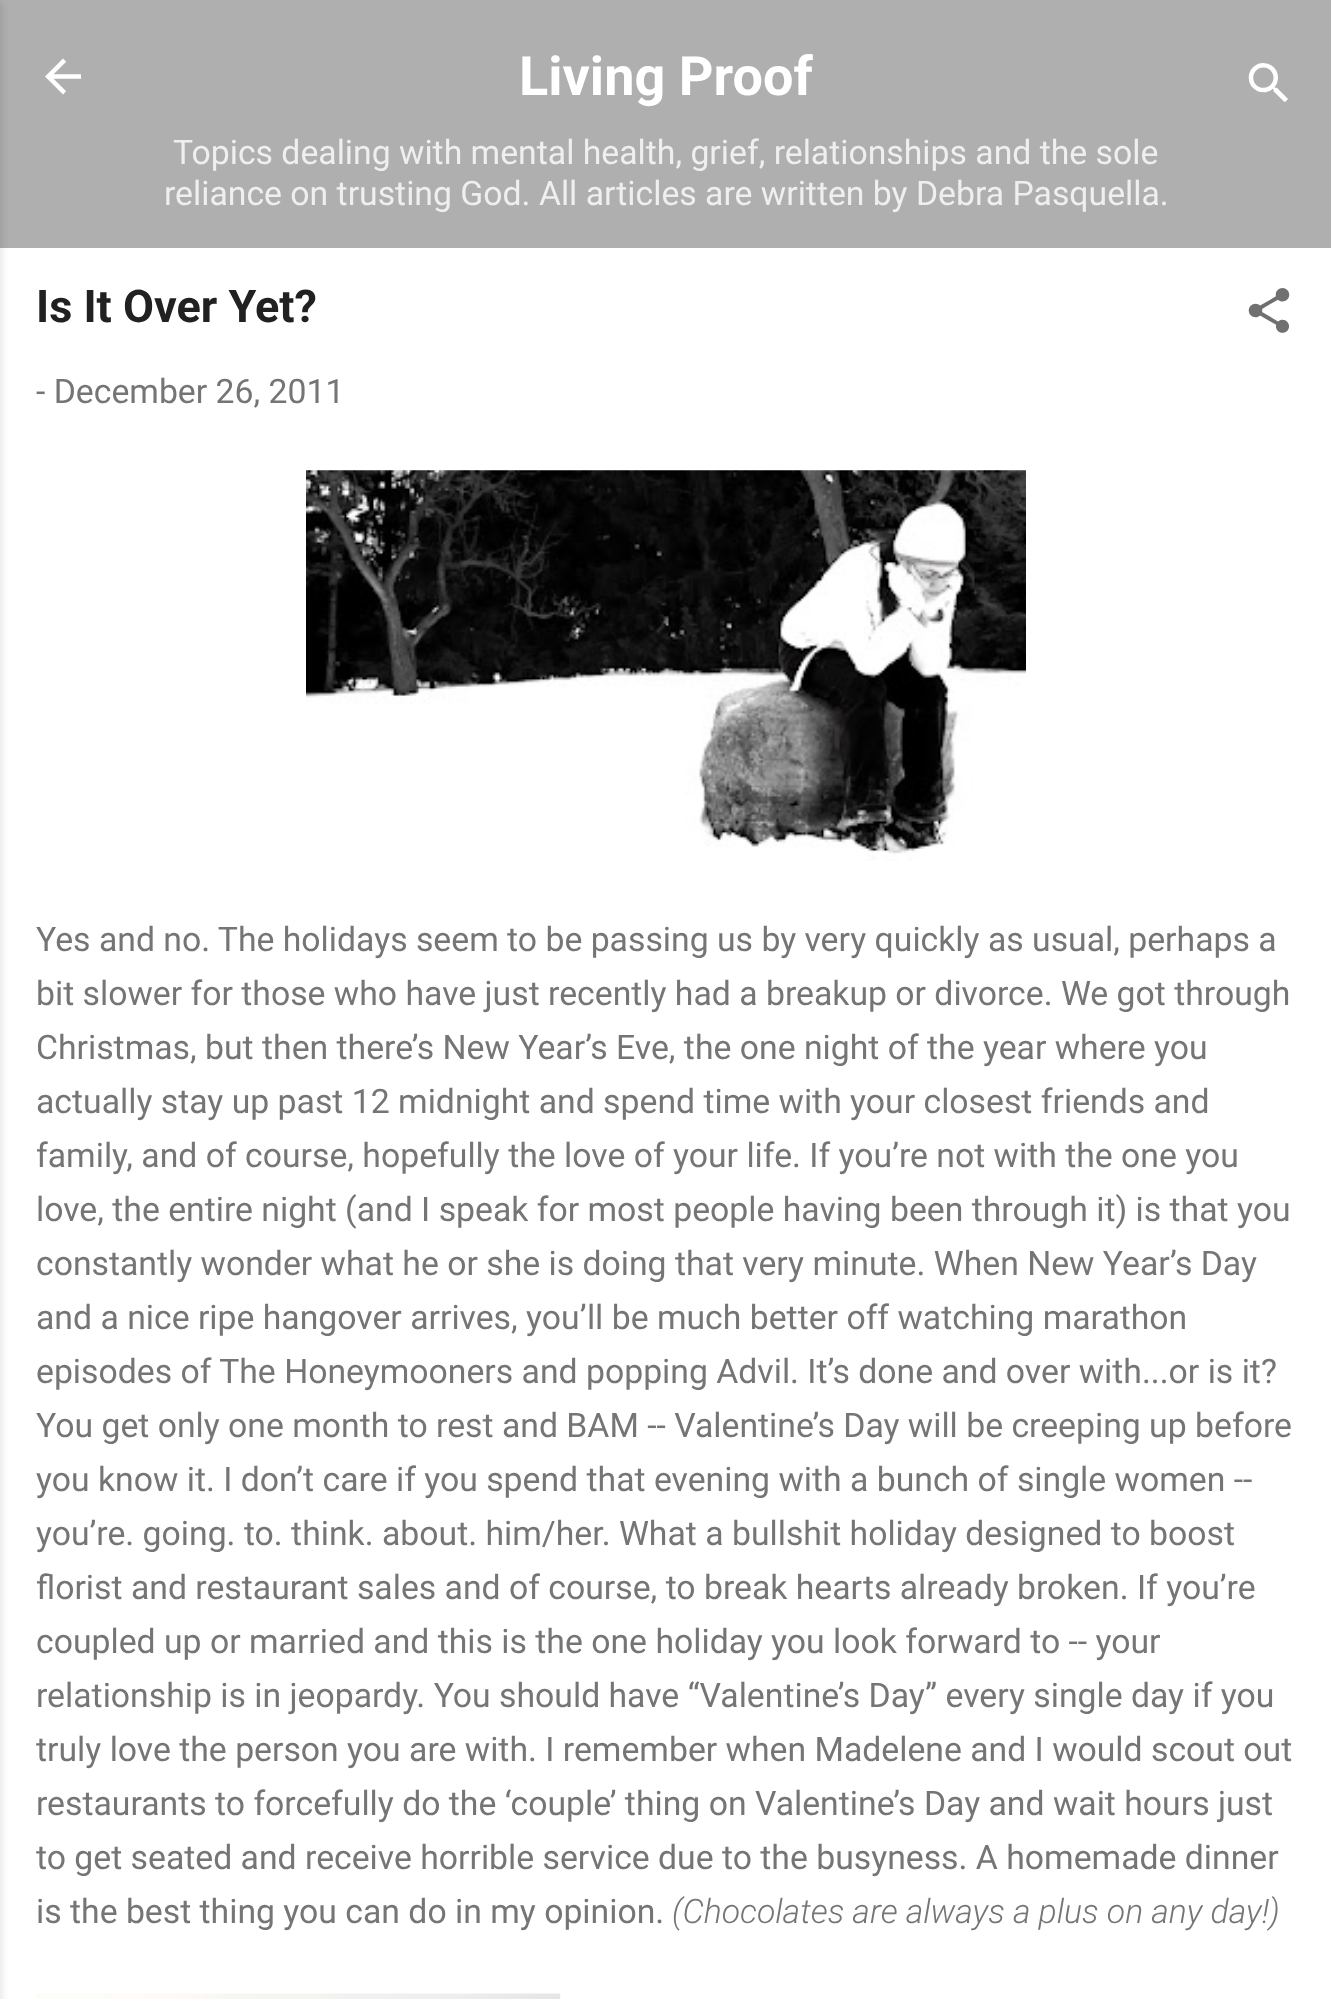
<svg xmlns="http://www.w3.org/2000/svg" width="1331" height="1999">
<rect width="100%" height="100%" fill="#afafaf"/>
<rect y="248" width="1331" height="1751" fill="#fff"/>
<rect x="-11" y="2" width="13" height="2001" fill="#0000001a" filter="blur(3.5px)"/>
<image x="45" y="58" width="36" height="37" href="media/1.png"/>
<text x="519" y="95" style="font-family:Roboto;font-size:54px;font-weight:bold;fill:#fff">Living Proof</text>
<text x="173" y="164" style="font-family:Roboto;font-size:33.75px;fill:#efefef">Topics dealing with mental health, grief, relationships and the sole</text>
<text x="164" y="205" style="font-family:Roboto;font-size:33.75px;fill:#efefef">reliance on trusting God. All articles are written by Debra Pasquella.</text>
<image x="1248" y="63" width="40" height="40" href="media/2.png"/>
<text x="36" y="322" style="font-family:Roboto;font-size:45px;font-weight:bold;fill:#212121">Is It Over Yet?</text>
<image x="1248" y="288" width="42" height="45" href="media/3.png"/>
<text x="36" y="403" style="font-family:Roboto;font-size:33.75px;fill:#757575">- December 26, 2011</text>
<image x="306" y="470" width="720" height="391" href="media/4.png"/>
<text x="36" y="951" style="font-family:Roboto;font-size:33.75px;fill:#757575">Yes and no. The holidays seem to be passing us by very quickly as usual, perhaps a</text>
<text x="36" y="1005" style="font-family:Roboto;font-size:33.75px;fill:#757575">bit slower for those who have just recently had a breakup or divorce. We got through</text>
<text x="36" y="1059" style="font-family:Roboto;font-size:33.75px;fill:#757575">Christmas, but then there’s New Year’s Eve, the one night of the year where you</text>
<text x="36" y="1113" style="font-family:Roboto;font-size:33.75px;fill:#757575">actually stay up past 12 midnight and spend time with your closest friends and</text>
<text x="36" y="1167" style="font-family:Roboto;font-size:33.75px;fill:#757575">family, and of course, hopefully the love of your life. If you’re not with the one you</text>
<text x="36" y="1221" style="font-family:Roboto;font-size:33.75px;fill:#757575">love, the entire night (and I speak for most people having been through it) is that you</text>
<text x="36" y="1275" style="font-family:Roboto;font-size:33.75px;fill:#757575">constantly wonder what he or she is doing that very minute. When New Year’s Day</text>
<text x="36" y="1329" style="font-family:Roboto;font-size:33.75px;fill:#757575">and a nice ripe hangover arrives, you’ll be much better off watching marathon</text>
<text x="36" y="1383" style="font-family:Roboto;font-size:33.75px;fill:#757575">episodes of The Honeymooners and popping Advil. It’s done and over with...or is it?</text>
<text x="36" y="1437" style="font-family:Roboto;font-size:33.75px;fill:#757575">You get only one month to rest and BAM -- Valentine’s Day will be creeping up before</text>
<text x="36" y="1491" style="font-family:Roboto;font-size:33.75px;fill:#757575">you know it. I don’t care if you spend that evening with a bunch of single women --</text>
<text x="36" y="1545" style="font-family:Roboto;font-size:33.75px;fill:#757575">you’re. going. to. think. about. him/her. What a bullshit holiday designed to boost</text>
<text x="36" y="1599" style="font-family:Roboto;font-size:33.75px;fill:#757575">florist and restaurant sales and of course, to break hearts already broken. If you’re</text>
<text x="36" y="1653" style="font-family:Roboto;font-size:33.75px;fill:#757575">coupled up or married and this is the one holiday you look forward to -- your</text>
<text x="36" y="1707" style="font-family:Roboto;font-size:33.75px;fill:#757575">relationship is in jeopardy. You should have “Valentine’s Day” every single day if you</text>
<text x="36" y="1761" style="font-family:Roboto;font-size:33.75px;fill:#757575">truly love the person you are with. I remember when Madelene and I would scout out</text>
<text x="36" y="1815" style="font-family:Roboto;font-size:33.75px;fill:#757575">restaurants to forcefully do the ‘couple’ thing on Valentine’s Day and wait hours just</text>
<text x="36" y="1869" style="font-family:Roboto;font-size:33.75px;fill:#757575">to get seated and receive horrible service due to the busyness. A homemade dinner</text>
<text x="36" y="1923" style="font-family:Roboto;font-size:33.75px;fill:#757575">is the best thing you can do in my opinion.</text>
<text x="672" y="1923" style="font-family:Roboto;font-size:33.75px;font-weight:300;font-style:italic;fill:#757575">(Chocolates are always a plus on any day!)</text>
<image x="36" y="1993" width="525" height="6" href="media/5.png"/>
</svg>
